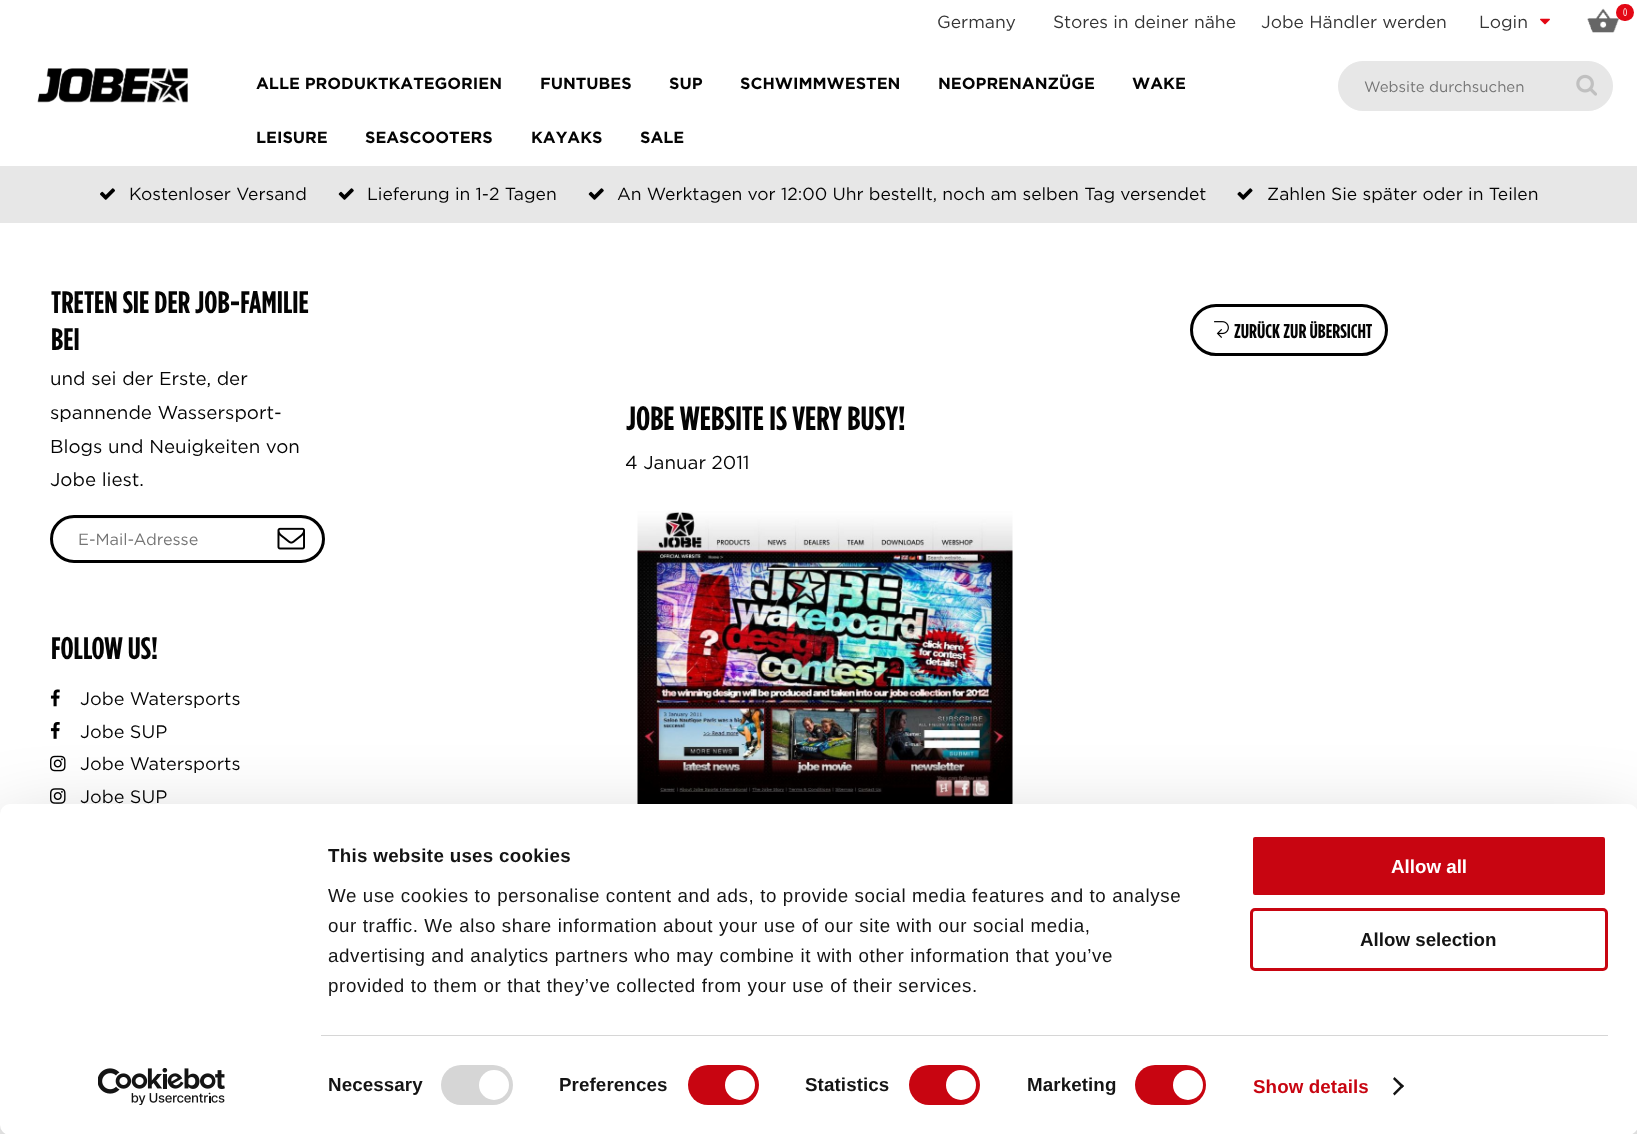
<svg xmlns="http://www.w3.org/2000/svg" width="1637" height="1134">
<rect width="100%" height="100%" fill="#fff"/>
<image x="1587" y="8" width="32" height="25" href="media/1.png"/>
<rect x="1616" y="4" width="18" height="17" rx="8.5" fill="#e30714"/>
<text x="1623" y="16" style="font-family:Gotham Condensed;font-size:11px;fill:#fff">0</text>
<text x="937" y="28" style="font-family:Gotham;font-size:17.5px;fill:#353535">Germany</text>
<text x="1053" y="28" style="font-family:Gotham;font-size:17.5px;fill:#353535">Stores in deiner nähe</text>
<text x="1261" y="28" style="font-family:Gotham;font-size:17.5px;fill:#353535">Jobe Händler werden</text>
<text x="1479" y="28" style="font-family:Gotham;font-size:17.5px;fill:#353535">Login</text>
<image x="1540" y="18" width="10" height="7" href="media/2.png"/>
<image x="37" y="68" width="151" height="35" href="media/3.png"/>
<text x="256" y="89" style="font-family:Gotham;font-size:16.25px;font-weight:bold;fill:#040404">ALLE PRODUKTKATEGORIEN</text>
<text x="540" y="89" style="font-family:Gotham;font-size:16.25px;font-weight:bold;fill:#040404">FUNTUBES</text>
<text x="669" y="89" style="font-family:Gotham;font-size:16.25px;font-weight:bold;fill:#040404">SUP</text>
<text x="740" y="89" style="font-family:Gotham;font-size:16.25px;font-weight:bold;fill:#040404">SCHWIMMWESTEN</text>
<text x="938" y="89" style="font-family:Gotham;font-size:16.25px;font-weight:bold;fill:#040404">NEOPRENANZÜGE</text>
<text x="1132" y="89" style="font-family:Gotham;font-size:16.25px;font-weight:bold;fill:#040404">WAKE</text>
<text x="256" y="143" style="font-family:Gotham;font-size:16.25px;font-weight:bold;fill:#040404">LEISURE</text>
<text x="365" y="143" style="font-family:Gotham;font-size:16.25px;font-weight:bold;fill:#040404">SEASCOOTERS</text>
<text x="531" y="143" style="font-family:Gotham;font-size:16.25px;font-weight:bold;fill:#040404">KAYAKS</text>
<text x="640" y="143" style="font-family:Gotham;font-size:16.25px;font-weight:bold;fill:#040404">SALE</text>
<rect x="1338.5" y="61.5" width="274" height="49" rx="24.5" fill="#e7e7e7" stroke="#e7e7e7"/>
<text x="1364" y="92" style="font-family:Gotham;font-size:15px;fill:#757575">Website durchsuchen</text>
<image x="1576" y="74" width="21" height="22" href="media/4.png"/>
<rect y="166" width="1637" height="57" fill="#e7e7e7"/>
<image x="100" y="188" width="15" height="12" href="media/5.png"/>
<text x="129" y="200" style="font-family:Gotham;font-size:17.5px;fill:#040404">Kostenloser Versand</text>
<image x="338" y="188" width="16" height="12" href="media/6.png"/>
<text x="367" y="200" style="font-family:Gotham;font-size:17.5px;fill:#040404">Lieferung in 1-2 Tagen</text>
<image x="588" y="188" width="16" height="12" href="media/6.png"/>
<text x="617" y="200" style="font-family:Gotham;font-size:17.5px;fill:#040404">An Werktagen vor 12:00 Uhr bestellt, noch am selben Tag versendet</text>
<image x="1237" y="188" width="16" height="12" href="media/7.png"/>
<text x="1267" y="200" style="font-family:Gotham;font-size:17.5px;fill:#040404">Zahlen Sie später oder in Teilen</text>
<text x="51" y="313" style="font-family:Gotham Condensed;font-size:31.25px;font-weight:bold;fill:#040404">TRETEN SIE DER JOB-FAMILIE</text>
<text x="51" y="350" style="font-family:Gotham Condensed;font-size:31.25px;font-weight:bold;fill:#040404">BEI</text>
<text x="50" y="385" style="font-family:Gotham;font-size:18.75px;fill:#040404">und sei der Erste, der</text>
<text x="50" y="419" style="font-family:Gotham;font-size:18.75px;fill:#040404">spannende Wassersport-</text>
<text x="50" y="453" style="font-family:Gotham;font-size:18.75px;fill:#040404">Blogs und Neuigkeiten von</text>
<text x="50" y="486" style="font-family:Gotham;font-size:18.75px;fill:#040404">Jobe liest.</text>
<path d="M74 519h227c12 0 21 9 21 21c0 5-1 9-4 12c3-3 5-8 5-13c0-12-9-21-21-21h-228c-7 0-13 3-16 8c4-4 9-7 16-7z" fill="#f2f2f2"/>
<rect x="51.5" y="516.5" width="272" height="45" rx="22.5" fill="none" stroke="#000" stroke-width="3"/>
<text x="78" y="545" style="font-family:Gotham;font-size:16.25px;fill:#757575">E-Mail-Adresse</text>
<image x="277" y="527" width="28" height="23" href="media/8.png"/>
<text x="51" y="659" style="font-family:Gotham Condensed;font-size:31.25px;font-weight:bold;fill:#040404">FOLLOW US!</text>
<image x="50" y="689" width="10" height="18" href="media/9.png"/>
<text x="80" y="705" style="font-family:Gotham;font-size:18.1px;fill:#040404">Jobe Watersports</text>
<image x="50" y="722" width="10" height="17" href="media/10.png"/>
<text x="80" y="738" style="font-family:Gotham;font-size:18.1px;fill:#040404">Jobe SUP</text>
<image x="50" y="755" width="16" height="17" href="media/11.png"/>
<text x="80" y="770" style="font-family:Gotham;font-size:18.1px;fill:#040404">Jobe Watersports</text>
<image x="50" y="788" width="16" height="16" href="media/12.png"/>
<text x="80" y="803" style="font-family:Gotham;font-size:18.1px;fill:#040404">Jobe SUP</text>
<rect x="1191.5" y="305.5" width="195" height="49" rx="24.5" fill="none" stroke="#000" stroke-width="3"/>
<image x="1214" y="321" width="15" height="17" href="media/13.png"/>
<text x="1234" y="338" style="font-family:Gotham Condensed;font-size:20px;font-weight:bold;fill:#040404">ZURÜCK ZUR ÜBERSICHT</text>
<text x="626" y="430" style="font-family:Gotham Condensed;font-size:33.75px;font-weight:bold;fill:#040404">JOBE WEBSITE IS VERY BUSY!</text>
<text x="625" y="469" style="font-family:Gotham;font-size:18.75px;fill:#040404">4 Januar 2011</text>
<image x="637" y="510" width="376" height="294" href="media/14.png"/>
<rect y="841" width="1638" height="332" rx="10" fill="#0000004d" filter="blur(44px)"/>
<rect y="804" width="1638" height="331" rx="10" fill="#fff"/>
<text x="328" y="862" style="font-family:Liberation Sans;font-size:18.75px;font-weight:bold;letter-spacing:0.3px;fill:#141414">This website uses cookies</text>
<text x="328" y="902" style="font-family:Liberation Sans;font-size:18.75px;letter-spacing:0.62px;fill:#141414">We use cookies to personalise content and ads, to provide social media features and to analyse</text>
<text x="328" y="932" style="font-family:Liberation Sans;font-size:18.75px;letter-spacing:0.62px;fill:#141414">our traffic. We also share information about your use of our site with our social media,</text>
<text x="328" y="962" style="font-family:Liberation Sans;font-size:18.75px;letter-spacing:0.62px;fill:#141414">advertising and analytics partners who may combine it with other information that you’ve</text>
<text x="328" y="992" style="font-family:Liberation Sans;font-size:18.75px;letter-spacing:0.62px;fill:#141414">provided to them or that they’ve collected from your use of their services.</text>
<rect x="321" y="1035" width="1287" height="1" fill="#d6d6d6"/>
<text x="328" y="1091" style="font-family:Liberation Sans;font-size:18.75px;font-weight:bold;letter-spacing:0.1px;fill:#141414">Necessary</text>
<rect x="441" y="1065" width="72" height="40" rx="20" fill="#d6d6d6"/>
<circle cx="494" cy="1085" r="15" fill="#fff"/>
<text x="559" y="1091" style="font-family:Liberation Sans;font-size:18.75px;font-weight:bold;letter-spacing:0.1px;fill:#141414">Preferences</text>
<rect x="688" y="1065" width="71" height="40" rx="20" fill="#c80511"/>
<circle cx="740" cy="1085" r="15" fill="#fff"/>
<text x="805" y="1091" style="font-family:Liberation Sans;font-size:18.75px;font-weight:bold;letter-spacing:0.1px;fill:#141414">Statistics</text>
<rect x="909" y="1065" width="71" height="40" rx="20" fill="#c80511"/>
<circle cx="961" cy="1085" r="15" fill="#fff"/>
<text x="1027" y="1091" style="font-family:Liberation Sans;font-size:18.75px;font-weight:bold;letter-spacing:0.1px;fill:#141414">Marketing</text>
<rect x="1135" y="1065" width="71" height="40" rx="20" fill="#c80511"/>
<circle cx="1188" cy="1085" r="15" fill="#fff"/>
<text x="1253" y="1093" style="font-family:Liberation Sans;font-size:18.75px;font-weight:bold;letter-spacing:0.1px;fill:#c80511">Show details</text>
<path d="M1394.5 1077l9.5 9l-2 2l-9-9z" fill="#141414"/>
<path d="M1402 1084.5l2 1.5l-9.5 9.5l-1.5-2z" fill="#141414"/>
<rect x="1251.5" y="835.5" width="355" height="61" rx="3.5" fill="#c80511" stroke="#fff" stroke-width="3"/>
<text x="1391" y="873" style="font-family:Liberation Sans;font-size:18.75px;font-weight:bold;fill:#fff">Allow all</text>
<rect x="1251.5" y="909.5" width="355" height="60" rx="3.5" fill="none" stroke="#c80511" stroke-width="3"/>
<text x="1360" y="946" style="font-family:Liberation Sans;font-size:18.75px;font-weight:bold;fill:#141414">Allow selection</text>
<image x="98" y="1068" width="127" height="37" href="media/15.png"/>
</svg>
